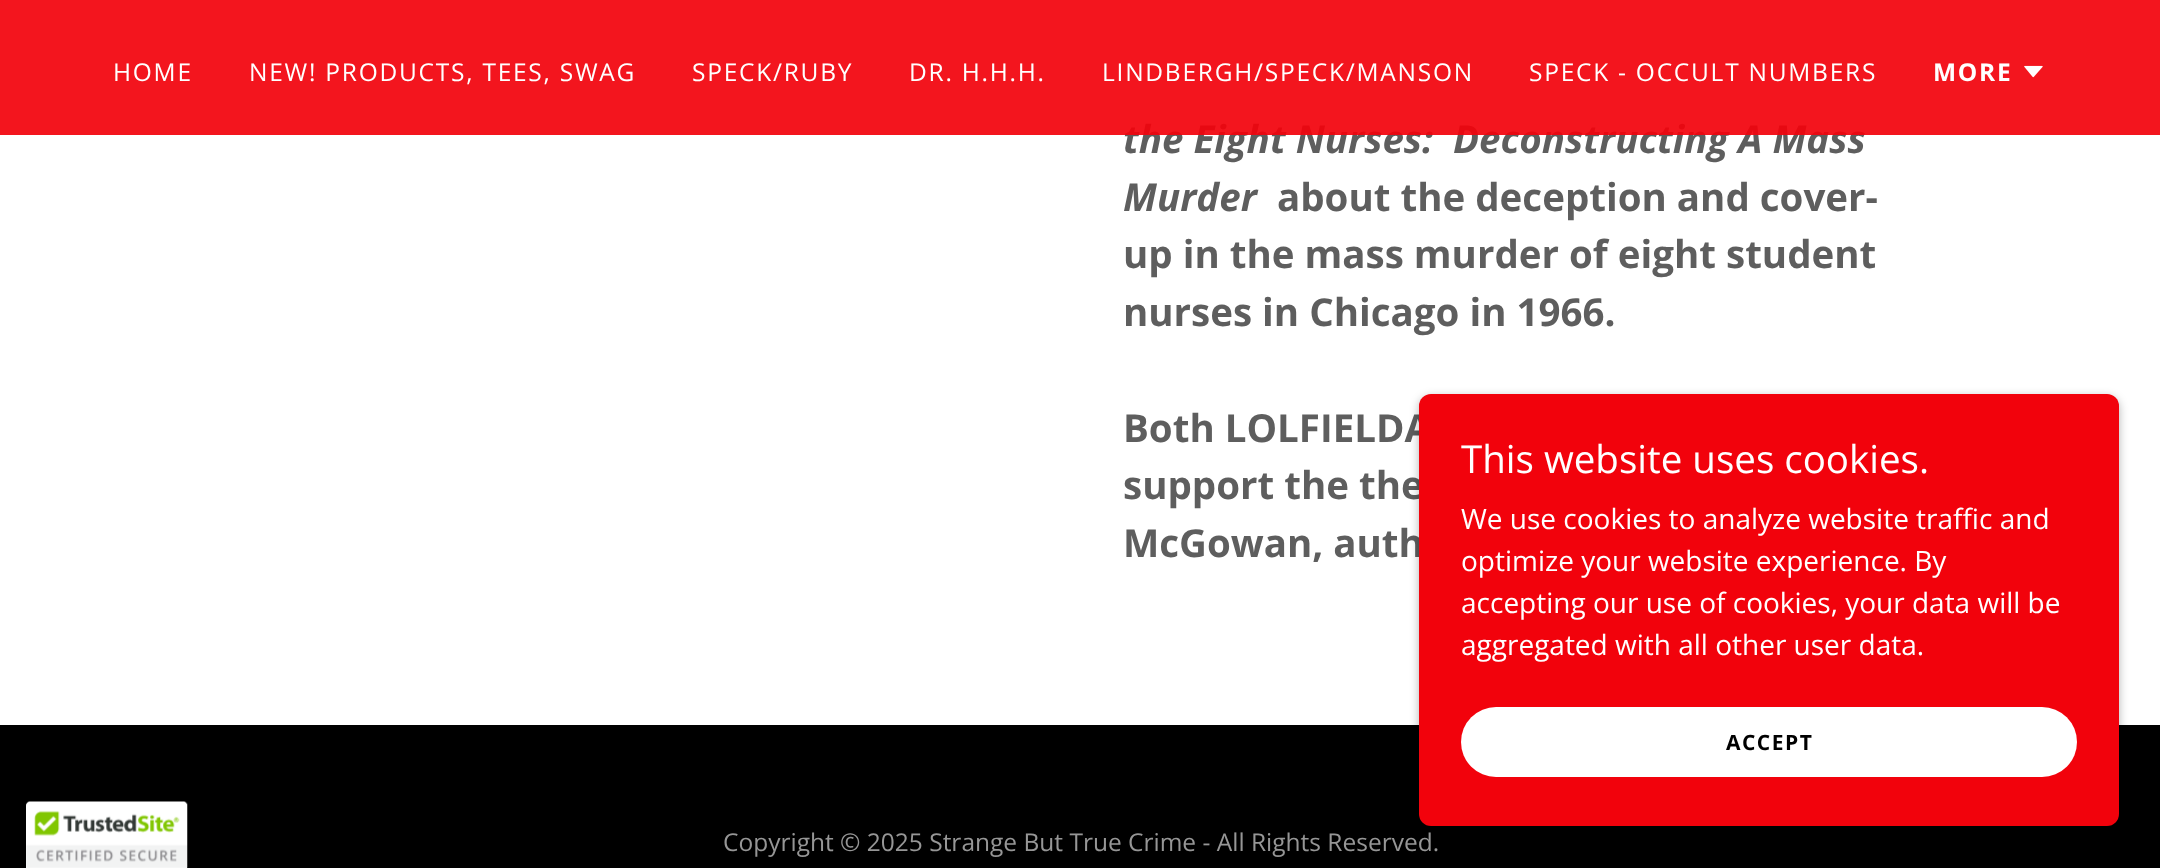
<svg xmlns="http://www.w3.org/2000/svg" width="2160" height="868">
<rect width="100%" height="100%" fill="#000"/>
<path d="M30 802h153c2 0 4 2 4 4v62h-161v-62c0-2 2-4 4-4z" fill="#fff"/>
<image x="26" y="801" width="162" height="67" href="media/1.png"/>
<rect width="2160" height="725" fill="#fff"/>
<text x="1123" y="153" style="font-family:Open Sans;font-size:38.5px;font-weight:bold;font-style:italic;fill:#5e5e5e" xml:space="preserve">the Eight Nurses:  Deconstructing A Mass</text>
<rect width="2160" height="135" fill="#f2020ce6"/>
<rect width="2160" height="135" fill="#f2020c40"/>
<text x="113" y="81" style="font-family:Open Sans;font-size:24.5px;letter-spacing:1.75px;fill:#fff">HOME</text>
<text x="249" y="81" style="font-family:Open Sans;font-size:24.5px;letter-spacing:1.75px;fill:#fff">NEW! PRODUCTS, TEES, SWAG</text>
<text x="692" y="81" style="font-family:Open Sans;font-size:24.5px;letter-spacing:1.75px;fill:#fff">SPECK/RUBY</text>
<text x="909" y="81" style="font-family:Open Sans;font-size:24.5px;letter-spacing:1.75px;fill:#fff">DR. H.H.H.</text>
<text x="1102" y="81" style="font-family:Open Sans;font-size:24.5px;letter-spacing:1.75px;fill:#fff">LINDBERGH/SPECK/MANSON</text>
<text x="1529" y="81" style="font-family:Open Sans;font-size:24.5px;letter-spacing:1.75px;fill:#fff">SPECK - OCCULT NUMBERS</text>
<text x="1933" y="81" style="font-family:Open Sans;font-size:24.5px;font-weight:bold;letter-spacing:1.75px;fill:#fff">MORE</text>
<image x="2024" y="65" width="19" height="13" href="media/2.png"/>
<text x="1123" y="211" style="font-family:Open Sans;font-size:38.5px;font-weight:bold;font-style:italic;fill:#5e5e5e">Murder</text>
<text x="1277" y="211" style="font-family:Open Sans;font-size:38.5px;font-weight:bold;fill:#5e5e5e">about the deception and cover-</text>
<text x="1123" y="268" style="font-family:Open Sans;font-size:38.5px;font-weight:bold;fill:#5e5e5e">up in the mass murder of eight student</text>
<text x="1123" y="326" style="font-family:Open Sans;font-size:38.5px;font-weight:bold;fill:#5e5e5e">nurses in Chicago in 1966.</text>
<text x="1123" y="442" style="font-family:Open Sans;font-size:38.5px;font-weight:bold;fill:#5e5e5e">Both LOLFIELDA</text>
<text x="1123" y="499" style="font-family:Open Sans;font-size:38.5px;font-weight:bold;fill:#5e5e5e">support the the</text>
<text x="1123" y="557" style="font-family:Open Sans;font-size:38.5px;font-weight:bold;fill:#5e5e5e">McGowan, auth</text>
<rect x="1419" y="397" width="700" height="433" rx="12" fill="#0000004d" filter="blur(5px)"/>
<rect x="1419" y="394" width="700" height="432" rx="12" fill="#f2020c"/>
<text x="1461" y="473" style="font-family:Open Sans;font-size:38.5px;fill:#fff">This website uses cookies.</text>
<text x="1461" y="529" style="font-family:Open Sans;font-size:28px;fill:#fff">We use cookies to analyze website traffic and</text>
<text x="1461" y="571" style="font-family:Open Sans;font-size:28px;fill:#fff">optimize your website experience. By</text>
<text x="1461" y="613" style="font-family:Open Sans;font-size:28px;fill:#fff">accepting our use of cookies, your data will be</text>
<text x="1461" y="655" style="font-family:Open Sans;font-size:28px;fill:#fff">aggregated with all other user data.</text>
<rect x="1461" y="707" width="616" height="70" rx="35" fill="#fff"/>
<text x="1726" y="750" style="font-family:Open Sans;font-size:21px;font-weight:bold;letter-spacing:1.5px;fill:#000">ACCEPT</text>
<text x="723" y="851" style="font-family:Open Sans;font-size:24.5px;fill:#969696">Copyright © 2025 Strange But True Crime - All Rights Reserved.</text>
</svg>
